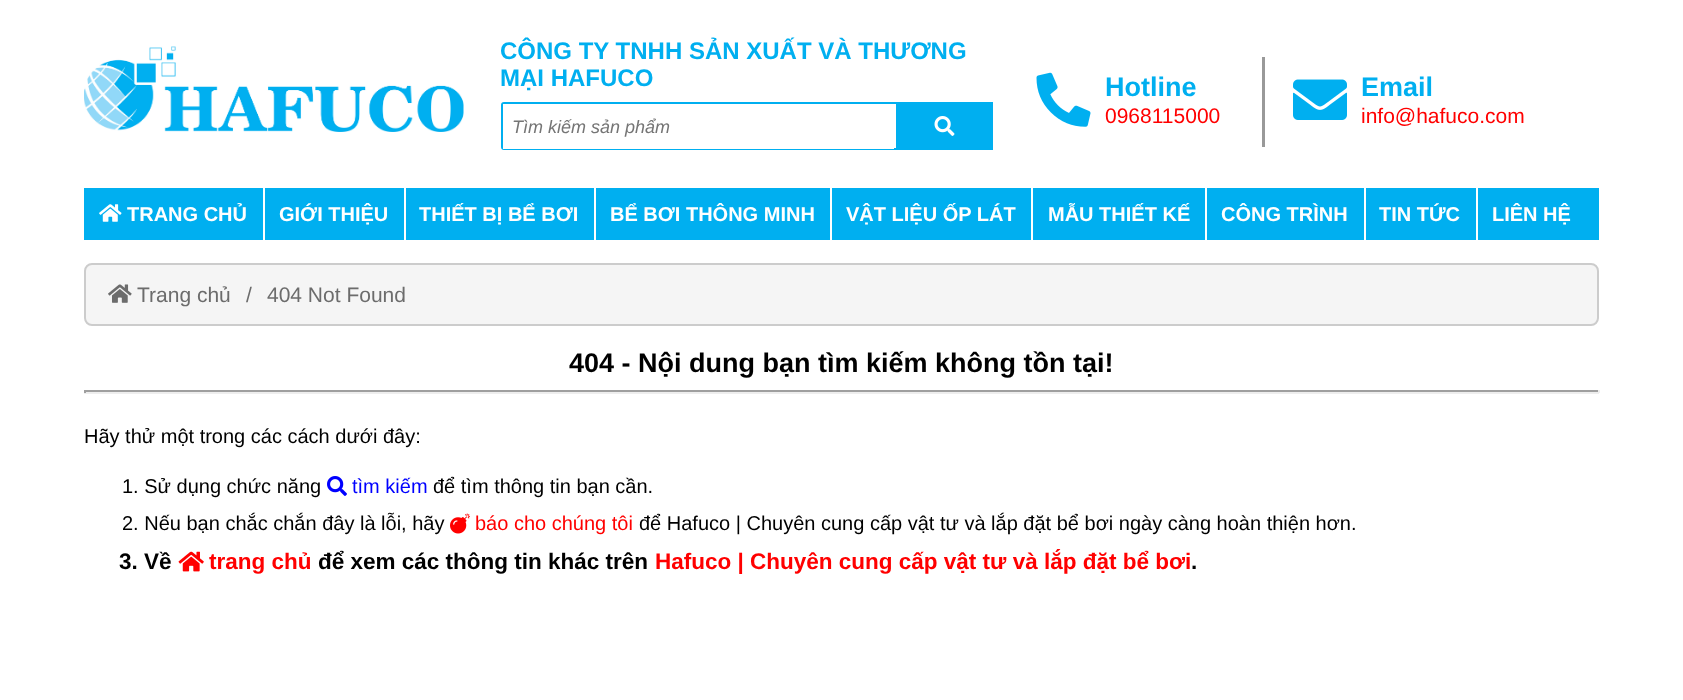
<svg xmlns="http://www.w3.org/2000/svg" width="1683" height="700">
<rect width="100%" height="100%" fill="#fff"/>
<image x="84" y="46" width="380" height="86" href="media/1.png"/>
<text x="500" y="59" style="font-family:Liberation Sans;font-size:24px;font-weight:bold;fill:#00aff0">CÔNG TY TNHH SẢN XUẤT VÀ THƯƠNG</text>
<text x="500" y="86" style="font-family:Liberation Sans;font-size:24px;font-weight:bold;fill:#00aff0">MẠI HAFUCO</text>
<rect x="502" y="103" width="490" height="46" rx="2" fill="none" stroke="#00aff0" stroke-width="2"/>
<rect x="503" y="104" width="391" height="45" fill="#fff"/>
<text x="512" y="133" style="font-family:Liberation Sans;font-size:18px;font-style:italic;fill:#757575">Tìm kiếm sản phẩm</text>
<rect x="896" y="102" width="97" height="48" fill="#00aff0"/>
<image x="934" y="116" width="21" height="20" href="media/2.png"/>
<image x="1036" y="72" width="55" height="55" href="media/3.png"/>
<text x="1105" y="96" style="font-family:Liberation Sans;font-size:27px;font-weight:bold;fill:#00aff0">Hotline</text>
<text x="1105" y="123" style="font-family:Liberation Sans;font-size:21px;fill:#f00">0968115000</text>
<rect x="1262" y="57" width="3" height="90" fill="#999"/>
<image x="1293" y="79" width="54" height="41" href="media/4.png"/>
<text x="1361" y="96" style="font-family:Liberation Sans;font-size:27px;font-weight:bold;fill:#00aff0">Email</text>
<text x="1361" y="123" style="font-family:Liberation Sans;font-size:21px;fill:#f00">info@hafuco.com</text>
<rect x="84" y="188" width="1515" height="52" fill="#00aff0"/>
<rect x="263" y="188" width="2" height="52" fill="#fff"/>
<image x="99" y="204" width="23" height="18" href="media/5.png"/>
<text x="127" y="221" style="font-family:Liberation Sans;font-size:20px;font-weight:bold;fill:#fff">TRANG CHỦ</text>
<rect x="404" y="188" width="2" height="52" fill="#fff"/>
<text x="279" y="221" style="font-family:Liberation Sans;font-size:20px;font-weight:bold;fill:#fff">GIỚI THIỆU</text>
<rect x="594" y="188" width="2" height="52" fill="#fff"/>
<text x="419" y="221" style="font-family:Liberation Sans;font-size:20px;font-weight:bold;fill:#fff">THIẾT BỊ BỂ BƠI</text>
<rect x="830" y="188" width="2" height="52" fill="#fff"/>
<text x="610" y="221" style="font-family:Liberation Sans;font-size:20px;font-weight:bold;fill:#fff">BỂ BƠI THÔNG MINH</text>
<rect x="1031" y="188" width="2" height="52" fill="#fff"/>
<text x="846" y="221" style="font-family:Liberation Sans;font-size:20px;font-weight:bold;fill:#fff">VẬT LIỆU ỐP LÁT</text>
<rect x="1205" y="188" width="2" height="52" fill="#fff"/>
<text x="1048" y="221" style="font-family:Liberation Sans;font-size:20px;font-weight:bold;fill:#fff">MẪU THIẾT KẾ</text>
<rect x="1364" y="188" width="2" height="52" fill="#fff"/>
<text x="1221" y="221" style="font-family:Liberation Sans;font-size:20px;font-weight:bold;fill:#fff">CÔNG TRÌNH</text>
<rect x="1476" y="188" width="2" height="52" fill="#fff"/>
<text x="1379" y="221" style="font-family:Liberation Sans;font-size:20px;font-weight:bold;fill:#fff">TIN TỨC</text>
<text x="1492" y="221" style="font-family:Liberation Sans;font-size:20px;font-weight:bold;fill:#fff">LIÊN HỆ</text>
<rect x="85" y="264" width="1513" height="61" rx="7" fill="#f5f5f5" stroke="#ccc" stroke-width="2"/>
<image x="108" y="284" width="24" height="19" href="media/6.png"/>
<text x="137" y="302" style="font-family:Liberation Sans;font-size:21px;fill:#6c6c6c">Trang chủ</text>
<text x="246" y="302" style="font-family:Liberation Sans;font-size:21px;fill:#6c6c6c">/</text>
<text x="267" y="302" style="font-family:Liberation Sans;font-size:21px;fill:#6c6c6c">404 Not Found</text>
<text x="569" y="372" style="font-family:Liberation Sans;font-size:27px;font-weight:bold;fill:#000">404 - Nội dung bạn tìm kiếm không tồn tại!</text>
<rect x="84" y="390" width="1515" height="2" fill="#9f9f9f"/>
<rect x="1598" y="390" width="2" height="3" fill="#eee"/>
<rect x="84" y="392" width="1515" height="2" fill="#eee"/>
<rect x="84" y="390" width="2" height="3" fill="#9f9f9f"/>
<text x="84" y="443" style="font-family:Liberation Sans;font-size:20px;fill:#000">Hãy thử một trong các cách dưới đây:</text>
<text x="122" y="493" style="font-family:Liberation Sans;font-size:20px;fill:#000">1. Sử dụng chức năng</text>
<image x="327" y="476" width="20" height="20" href="media/7.png"/>
<text x="352" y="493" style="font-family:Liberation Sans;font-size:20px;fill:#00f">tìm kiếm</text>
<text x="433" y="493" style="font-family:Liberation Sans;font-size:20px;fill:#000">để tìm thông tin bạn cần.</text>
<text x="122" y="530" style="font-family:Liberation Sans;font-size:20px;fill:#000">2. Nếu bạn chắc chắn đây là lỗi, hãy</text>
<image x="450" y="513" width="20" height="21" href="media/8.png"/>
<text x="475" y="530" style="font-family:Liberation Sans;font-size:20px;fill:#f00">báo cho chúng tôi</text>
<text x="639" y="530" style="font-family:Liberation Sans;font-size:20px;fill:#000">để Hafuco | Chuyên cung cấp vật tư và lắp đặt bể bơi ngày càng hoàn thiện hơn.</text>
<text x="119" y="569" style="font-family:Liberation Sans;font-size:22.5px;font-weight:bold;fill:#000">3. Về</text>
<image x="178" y="551" width="26" height="21" href="media/9.png"/>
<text x="209" y="569" style="font-family:Liberation Sans;font-size:22.5px;font-weight:bold;fill:#f00">trang chủ</text>
<text x="318" y="569" style="font-family:Liberation Sans;font-size:22.5px;font-weight:bold;fill:#000">để xem các thông tin khác trên</text>
<text x="655" y="569" style="font-family:Liberation Sans;font-size:22.5px;font-weight:bold;fill:#f00">Hafuco | Chuyên cung cấp vật tư và lắp đặt bể bơi</text>
<text x="1191" y="569" style="font-family:Liberation Sans;font-size:22.5px;font-weight:bold;fill:#000">.</text>
</svg>
